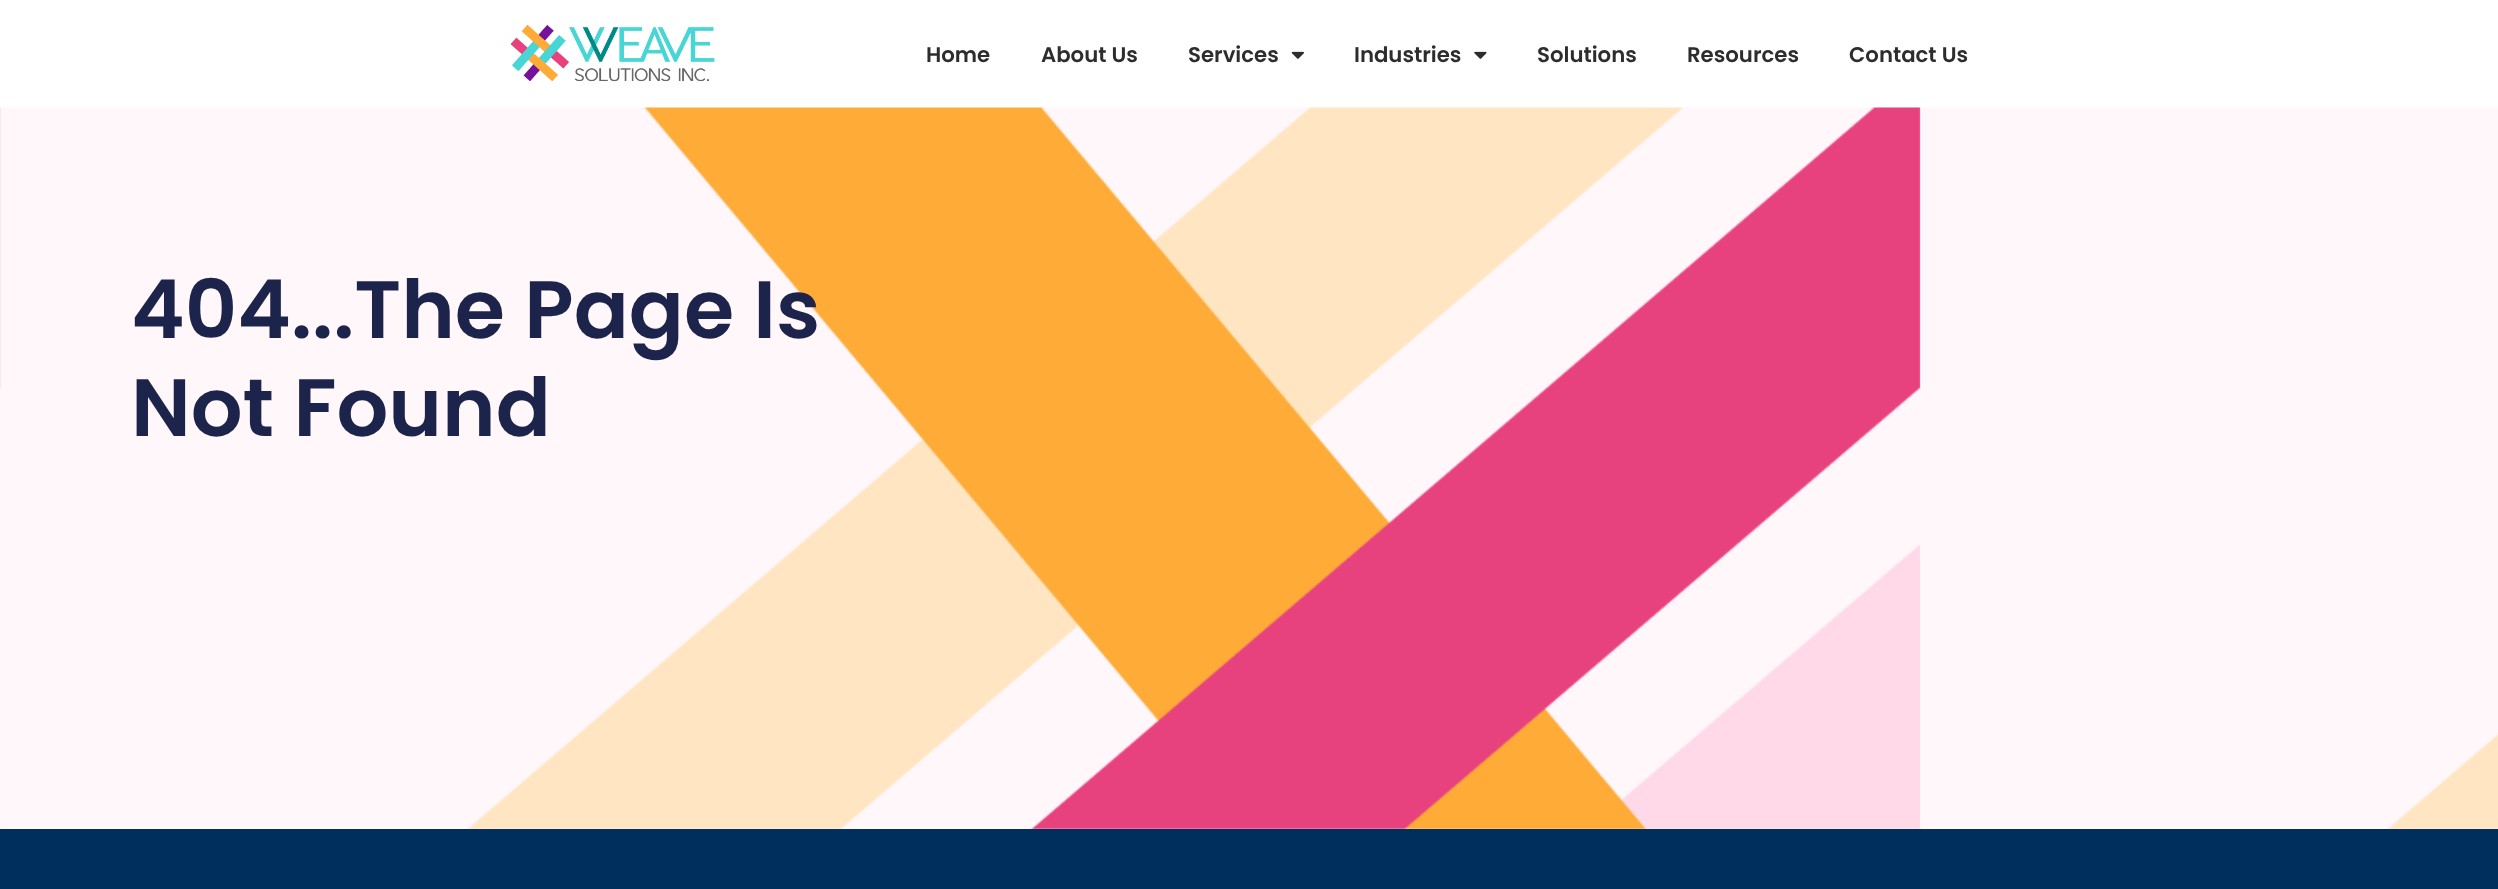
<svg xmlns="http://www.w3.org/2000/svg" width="2498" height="889">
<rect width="100%" height="100%" fill="#fff"/>
<image x="510" y="24" width="205" height="58" href="media/1.png"/>
<text x="926" y="62" style="font-family:Poppins;font-size:21.25px;font-weight:600;fill:#2d2d2d">Home</text>
<text x="1041" y="62" style="font-family:Poppins;font-size:21.25px;font-weight:600;fill:#2d2d2d">About Us</text>
<text x="1188" y="62" style="font-family:Poppins;font-size:21.25px;font-weight:600;fill:#2d2d2d">Services</text>
<image x="1291" y="51" width="13" height="8" href="media/2.png"/>
<text x="1354" y="62" style="font-family:Poppins;font-size:21.25px;font-weight:600;fill:#2d2d2d">Industries</text>
<image x="1474" y="51" width="13" height="8" href="media/3.png"/>
<text x="1537" y="62" style="font-family:Poppins;font-size:21.25px;font-weight:600;fill:#2d2d2d">Solutions</text>
<text x="1687" y="62" style="font-family:Poppins;font-size:21.25px;font-weight:600;fill:#2d2d2d">Resources</text>
<text x="1849" y="62" style="font-family:Poppins;font-size:21.25px;font-weight:600;fill:#2d2d2d">Contact Us</text>
<image x="0" y="107" width="2498" height="722" href="media/4.png"/>
<text x="131" y="338" style="font-family:Poppins;font-size:81.25px;font-weight:600;fill:#1c244b">404...The Page Is</text>
<text x="131" y="436" style="font-family:Poppins;font-size:81.25px;font-weight:600;fill:#1c244b">Not Found</text>
<rect y="829" width="2498" height="60" fill="#002f5d"/>
</svg>
